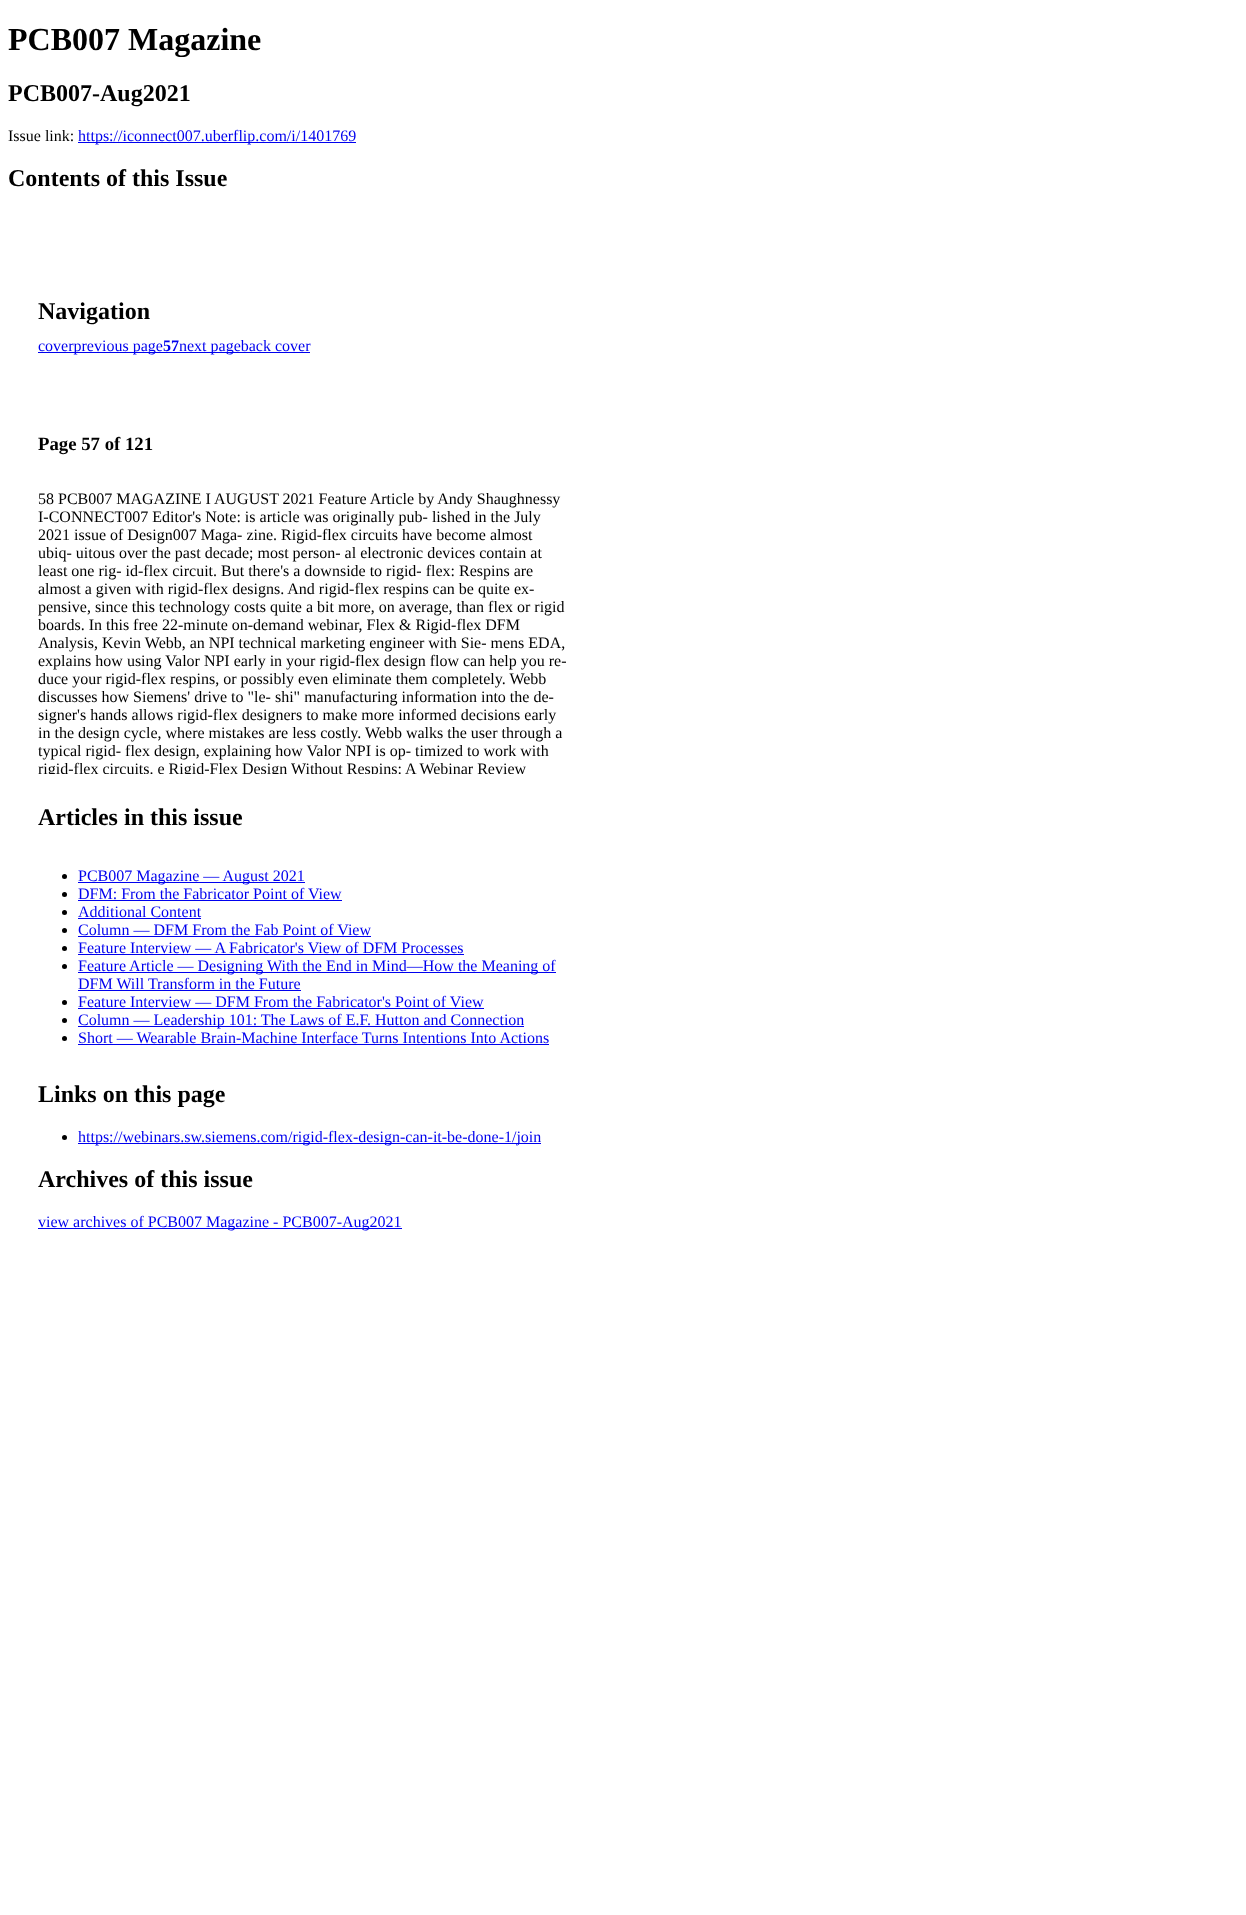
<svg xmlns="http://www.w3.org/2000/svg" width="1246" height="1915">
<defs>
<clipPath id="clip1"><rect x="38" y="474" width="550" height="300"/></clipPath>
</defs>
<rect width="100%" height="100%" fill="#fff"/>
<text x="8" y="50" style="font-family:Liberation Serif;font-size:32px;font-weight:bold;fill:#000">PCB007 Magazine</text>
<text x="8" y="101" style="font-family:Liberation Serif;font-size:24px;font-weight:bold;fill:#000">PCB007-Aug2021</text>
<text x="8" y="141" style="font-family:Liberation Serif;font-size:16px;fill:#000">Issue link:</text>
<rect x="78" y="142" width="278" height="1" fill="#00e"/>
<text x="78" y="141" style="font-family:Liberation Serif;font-size:16px;fill:#00e">https://iconnect007.uberflip.com/i/1401769</text>
<text x="8" y="186" style="font-family:Liberation Serif;font-size:24px;font-weight:bold;fill:#000">Contents of this Issue</text>
<text x="38" y="319" style="font-family:Liberation Serif;font-size:24px;font-weight:bold;fill:#000">Navigation</text>
<rect x="38" y="352" width="272" height="1" fill="#00e"/>
<text x="38" y="351" style="font-family:Liberation Serif;font-size:16px;fill:#00e">coverprevious page</text>
<text x="163" y="351" style="font-family:Liberation Serif;font-size:16px;font-weight:bold;fill:#00e">57</text>
<text x="179" y="351" style="font-family:Liberation Serif;font-size:16px;fill:#00e">next pageback cover</text>
<text x="38" y="450" style="font-family:Liberation Serif;font-size:18.75px;font-weight:bold;fill:#000">Page 57 of 121</text>
<text x="38" y="504" style="font-family:Liberation Serif;font-size:16px;fill:#000">58 PCB007 MAGAZINE I AUGUST 2021 Feature Article by Andy Shaughnessy</text>
<text x="38" y="522" style="font-family:Liberation Serif;font-size:16px;fill:#000">I-CONNECT007 Editor's Note: is article was originally pub- lished in the July</text>
<text x="38" y="540" style="font-family:Liberation Serif;font-size:16px;fill:#000">2021 issue of Design007 Maga- zine. Rigid-flex circuits have become almost</text>
<text x="38" y="558" style="font-family:Liberation Serif;font-size:16px;fill:#000">ubiq- uitous over the past decade; most person- al electronic devices contain at</text>
<text x="38" y="576" style="font-family:Liberation Serif;font-size:16px;fill:#000">least one rig- id-flex circuit. But there's a downside to rigid- flex: Respins are</text>
<text x="38" y="594" style="font-family:Liberation Serif;font-size:16px;fill:#000">almost a given with rigid-flex designs. And rigid-flex respins can be quite ex-</text>
<text x="38" y="612" style="font-family:Liberation Serif;font-size:16px;fill:#000">pensive, since this technology costs quite a bit more, on average, than flex or rigid</text>
<text x="38" y="630" style="font-family:Liberation Serif;font-size:16px;fill:#000">boards. In this free 22-minute on-demand webinar, Flex &amp; Rigid-flex DFM</text>
<text x="38" y="648" style="font-family:Liberation Serif;font-size:16px;fill:#000">Analysis, Kevin Webb, an NPI technical marketing engineer with Sie- mens EDA,</text>
<text x="38" y="666" style="font-family:Liberation Serif;font-size:16px;fill:#000">explains how using Valor NPI early in your rigid-flex design flow can help you re-</text>
<text x="38" y="684" style="font-family:Liberation Serif;font-size:16px;fill:#000">duce your rigid-flex respins, or possibly even eliminate them completely. Webb</text>
<text x="38" y="702" style="font-family:Liberation Serif;font-size:16px;fill:#000">discusses how Siemens' drive to "le- shi" manufacturing information into the de-</text>
<text x="38" y="720" style="font-family:Liberation Serif;font-size:16px;fill:#000">signer's hands allows rigid-flex designers to make more informed decisions early</text>
<text x="38" y="738" style="font-family:Liberation Serif;font-size:16px;fill:#000">in the design cycle, where mistakes are less costly. Webb walks the user through a</text>
<text x="38" y="756" style="font-family:Liberation Serif;font-size:16px;fill:#000">typical rigid- flex design, explaining how Valor NPI is op- timized to work with</text>
<g clip-path="url(#clip1)">
<text x="38" y="774" style="font-family:Liberation Serif;font-size:16px;fill:#000">rigid-flex circuits. e Rigid-Flex Design</text>
<text x="291" y="774" style="font-family:Liberation Serif;font-size:16px;fill:#000">Without Respins:</text>
<text x="405" y="774" style="font-family:Liberation Serif;font-size:16px;fill:#000">A Webinar Review</text>
</g>
<text x="38" y="825" style="font-family:Liberation Serif;font-size:24px;font-weight:bold;fill:#000">Articles in this issue</text>
<circle cx="64.5" cy="876.5" r="2.5" fill="#000"/>
<rect x="78" y="882" width="227" height="1" fill="#00e"/>
<text x="78" y="881" style="font-family:Liberation Serif;font-size:16px;fill:#00e">PCB007 Magazine — August 2021</text>
<circle cx="64.5" cy="894.5" r="2.5" fill="#000"/>
<text x="78" y="899" style="font-family:Liberation Serif;font-size:16px;fill:#00e">DFM: From the Fabricator Point of View</text>
<rect x="78" y="900" width="264" height="1" fill="#00e"/>
<circle cx="64.5" cy="912.5" r="2.5" fill="#000"/>
<text x="78" y="917" style="font-family:Liberation Serif;font-size:16px;fill:#00e">Additional Content</text>
<rect x="78" y="918" width="123" height="1" fill="#00e"/>
<circle cx="64.5" cy="930.5" r="2.5" fill="#000"/>
<text x="78" y="935" style="font-family:Liberation Serif;font-size:16px;fill:#00e">Column — DFM From the Fab Point of View</text>
<rect x="78" y="936" width="293" height="1" fill="#00e"/>
<circle cx="64.5" cy="948.5" r="2.5" fill="#000"/>
<text x="78" y="953" style="font-family:Liberation Serif;font-size:16px;fill:#00e">Feature Interview — A Fabricator's View of DFM Processes</text>
<rect x="78" y="954" width="386" height="1" fill="#00e"/>
<circle cx="64.5" cy="966.5" r="2.5" fill="#000"/>
<rect x="78" y="972" width="478" height="1" fill="#00e"/>
<text x="78" y="971" style="font-family:Liberation Serif;font-size:16px;fill:#00e">Feature Article — Designing With the End in Mind—How the Meaning of</text>
<text x="78" y="989" style="font-family:Liberation Serif;font-size:16px;fill:#00e">DFM Will Transform in the Future</text>
<rect x="78" y="990" width="223" height="1" fill="#00e"/>
<circle cx="64.5" cy="1002.5" r="2.5" fill="#000"/>
<text x="78" y="1007" style="font-family:Liberation Serif;font-size:16px;fill:#00e">Feature Interview — DFM From the Fabricator's Point of View</text>
<rect x="78" y="1008" width="406" height="1" fill="#00e"/>
<circle cx="64.5" cy="1020.5" r="2.5" fill="#000"/>
<rect x="78" y="1026" width="446" height="1" fill="#00e"/>
<text x="78" y="1025" style="font-family:Liberation Serif;font-size:16px;fill:#00e">Column — Leadership 101: The Laws of E.F. Hutton and Connection</text>
<circle cx="64.5" cy="1038.5" r="2.5" fill="#000"/>
<text x="78" y="1043" style="font-family:Liberation Serif;font-size:16px;fill:#00e">Short — Wearable Brain-Machine Interface Turns Intentions Into Actions</text>
<rect x="78" y="1044" width="471" height="1" fill="#00e"/>
<text x="38" y="1102" style="font-family:Liberation Serif;font-size:24px;font-weight:bold;fill:#000">Links on this page</text>
<circle cx="64.5" cy="1137.5" r="2.5" fill="#000"/>
<rect x="78" y="1143" width="463" height="1" fill="#00e"/>
<text x="78" y="1142" style="font-family:Liberation Serif;font-size:16px;fill:#00e">https://webinars.sw.siemens.com/rigid-flex-design-can-it-be-done-1/join</text>
<text x="38" y="1187" style="font-family:Liberation Serif;font-size:24px;font-weight:bold;fill:#000">Archives of this issue</text>
<rect x="38" y="1228" width="364" height="1" fill="#00e"/>
<text x="38" y="1227" style="font-family:Liberation Serif;font-size:16px;fill:#00e">view archives of PCB007 Magazine - PCB007-Aug2021</text>
</svg>
